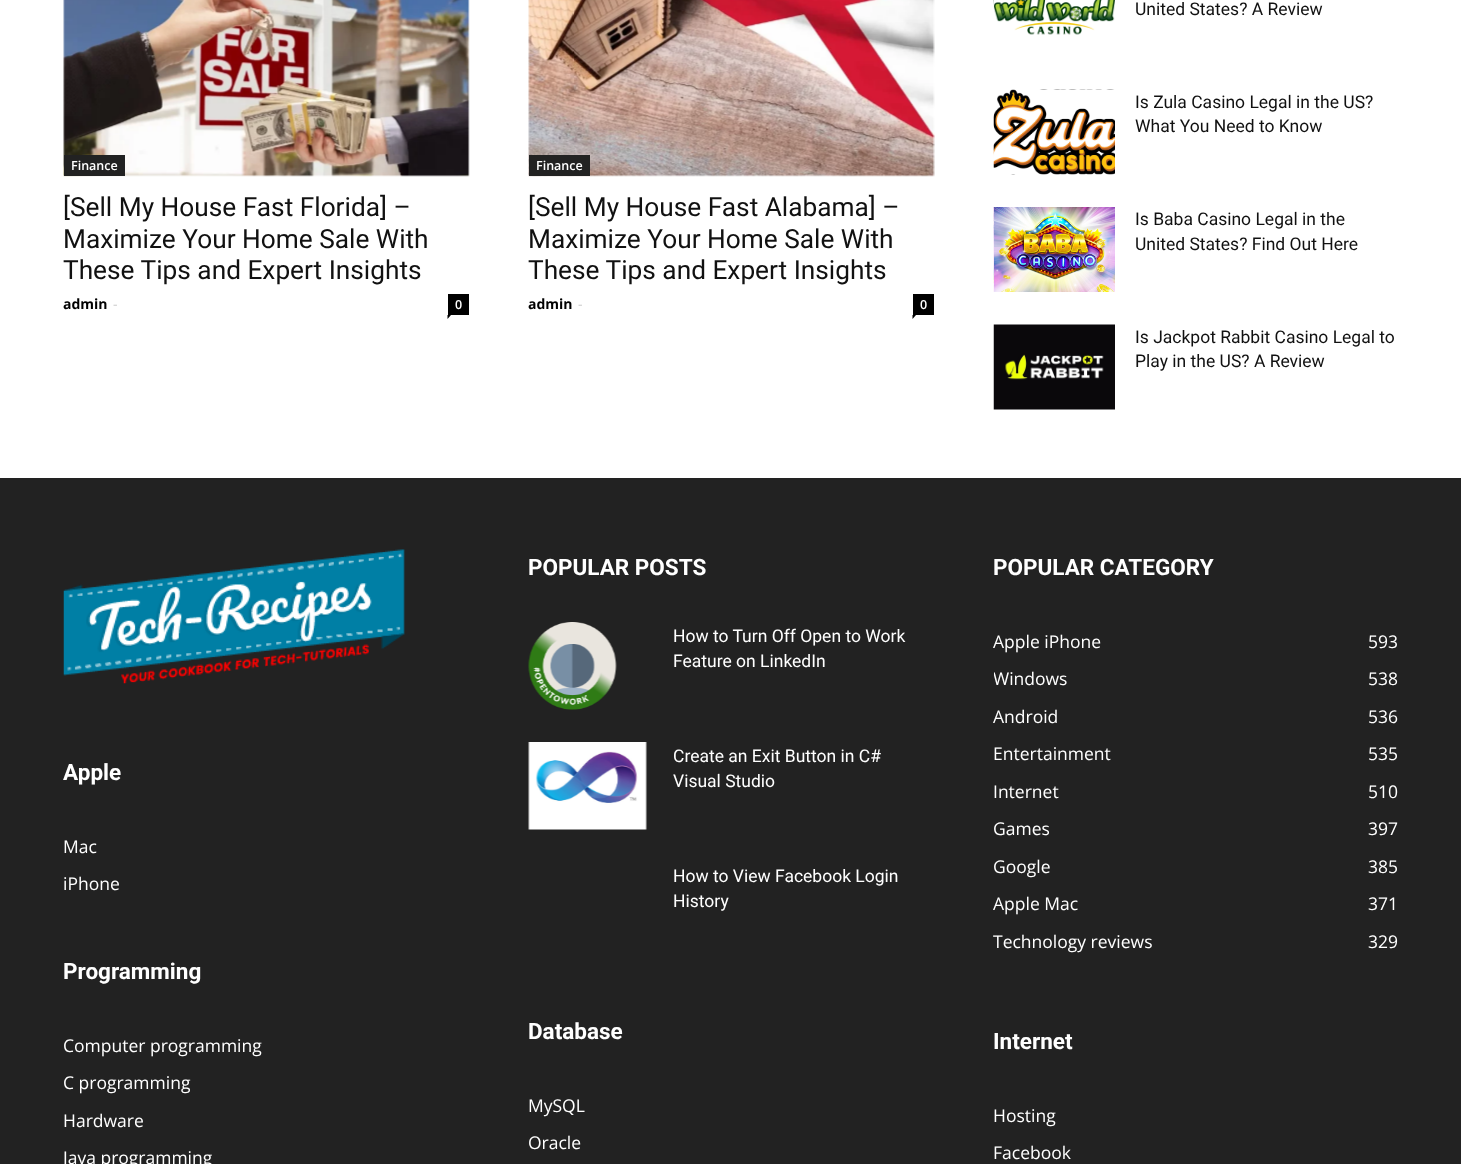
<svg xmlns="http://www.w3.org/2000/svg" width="1461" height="1164">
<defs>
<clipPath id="clip1"><rect x="994" y="546" width="405" height="414"/></clipPath>
</defs>
<rect width="100%" height="100%" fill="#fff"/>
<image x="63" y="0" width="407" height="177" href="media/1.png"/>
<rect x="64" y="155" width="61" height="21" fill="#222"/>
<text x="71" y="170" style="font-family:Open Sans;font-size:12.5px;font-weight:600;fill:#fff">Finance</text>
<text x="63" y="216" style="font-family:Roboto;font-size:26.25px;fill:#111">[Sell My House Fast Florida] –</text>
<text x="63" y="248" style="font-family:Roboto;font-size:26.25px;fill:#111">Maximize Your Home Sale With</text>
<text x="63" y="279" style="font-family:Roboto;font-size:26.25px;fill:#111">These Tips and Expert Insights</text>
<text x="63" y="309" style="font-family:Open Sans;font-size:14px;font-weight:bold;fill:#000">admin</text>
<text x="113" y="309" style="font-family:Open Sans;font-size:14px;fill:#ccc">-</text>
<rect x="448" y="294" width="21" height="21" fill="#000"/>
<text x="455" y="309" style="font-family:Open Sans;font-size:12.5px;font-weight:600;fill:#fff">0</text>
<path d="M447.5 315h3.5l-3.5 4z" fill="#000"/>
<image x="528" y="0" width="407" height="177" href="media/2.png"/>
<rect x="529" y="155" width="61" height="21" fill="#222"/>
<text x="536" y="170" style="font-family:Open Sans;font-size:12.5px;font-weight:600;fill:#fff">Finance</text>
<text x="528" y="216" style="font-family:Roboto;font-size:26.25px;fill:#111">[Sell My House Fast Alabama] –</text>
<text x="528" y="248" style="font-family:Roboto;font-size:26.25px;fill:#111">Maximize Your Home Sale With</text>
<text x="528" y="279" style="font-family:Roboto;font-size:26.25px;fill:#111">These Tips and Expert Insights</text>
<text x="528" y="309" style="font-family:Open Sans;font-size:14px;font-weight:bold;fill:#000">admin</text>
<text x="578" y="309" style="font-family:Open Sans;font-size:14px;fill:#ccc">-</text>
<rect x="913" y="294" width="21" height="21" fill="#000"/>
<text x="920" y="309" style="font-family:Open Sans;font-size:12.5px;font-weight:600;fill:#fff">0</text>
<path d="M912.5 315h3.5l-3.5 4z" fill="#000"/>
<image x="993" y="0" width="122" height="35" href="media/3.png"/>
<text x="1135" y="15" style="font-family:Roboto;font-size:17.5px;fill:#111">United States? A Review</text>
<image x="993" y="89" width="122" height="86" href="media/4.png"/>
<text x="1135" y="108" style="font-family:Roboto;font-size:17.5px;fill:#111">Is Zula Casino Legal in the US?</text>
<text x="1135" y="132" style="font-family:Roboto;font-size:17.5px;fill:#111">What You Need to Know</text>
<image x="993" y="207" width="122" height="85" href="media/5.png"/>
<text x="1135" y="225" style="font-family:Roboto;font-size:17.5px;fill:#111">Is Baba Casino Legal in the</text>
<text x="1135" y="250" style="font-family:Roboto;font-size:17.5px;fill:#111">United States? Find Out Here</text>
<image x="993" y="324" width="122" height="86" href="media/6.png"/>
<text x="1135" y="343" style="font-family:Roboto;font-size:17.5px;fill:#111">Is Jackpot Rabbit Casino Legal to</text>
<text x="1135" y="367" style="font-family:Roboto;font-size:17.5px;fill:#111">Play in the US? A Review</text>
<rect y="478" width="1461" height="686" fill="#222"/>
<image x="63" y="549" width="342" height="135" href="media/7.png"/>
<text x="63" y="780" style="font-family:Roboto;font-size:22.5px;font-weight:bold;fill:#fff">Apple</text>
<text x="63" y="853" style="font-family:Open Sans;font-size:17.5px;fill:#fff">Mac</text>
<text x="63" y="890" style="font-family:Open Sans;font-size:17.5px;fill:#fff">iPhone</text>
<text x="63" y="979" style="font-family:Roboto;font-size:22.5px;font-weight:bold;fill:#fff">Programming</text>
<text x="63" y="1052" style="font-family:Open Sans;font-size:17.5px;fill:#fff">Computer programming</text>
<text x="63" y="1089" style="font-family:Open Sans;font-size:17.5px;fill:#fff">C programming</text>
<text x="63" y="1127" style="font-family:Open Sans;font-size:17.5px;fill:#fff">Hardware</text>
<text x="63" y="1164" style="font-family:Open Sans;font-size:17.5px;fill:#fff">Java programming</text>
<text x="528" y="575" style="font-family:Roboto;font-size:22.5px;font-weight:bold;fill:#fff">POPULAR POSTS</text>
<image x="528" y="622" width="89" height="88" href="media/8.png"/>
<text x="673" y="642" style="font-family:Roboto;font-size:17.5px;fill:#fff">How to Turn Off Open to Work</text>
<text x="673" y="667" style="font-family:Roboto;font-size:17.5px;fill:#fff">Feature on LinkedIn</text>
<image x="528" y="742" width="119" height="88" href="media/9.png"/>
<text x="673" y="762" style="font-family:Roboto;font-size:17.5px;fill:#fff">Create an Exit Button in C#</text>
<text x="673" y="787" style="font-family:Roboto;font-size:17.5px;fill:#fff">Visual Studio</text>
<text x="673" y="882" style="font-family:Roboto;font-size:17.5px;fill:#fff">How to View Facebook Login</text>
<text x="673" y="907" style="font-family:Roboto;font-size:17.5px;fill:#fff">History</text>
<text x="528" y="1039" style="font-family:Roboto;font-size:22.5px;font-weight:bold;fill:#fff">Database</text>
<text x="528" y="1112" style="font-family:Open Sans;font-size:17.5px;fill:#fff">MySQL</text>
<text x="528" y="1149" style="font-family:Open Sans;font-size:17.5px;fill:#fff">Oracle</text>
<text x="993" y="575" style="font-family:Roboto;font-size:22.5px;font-weight:bold;fill:#fff">POPULAR CATEGORY</text>
<text x="993" y="648" style="font-family:Open Sans;font-size:17.5px;fill:#fff">Apple iPhone</text>
<text x="1368" y="648" style="font-family:Open Sans;font-size:17.5px;fill:#fff">593</text>
<g clip-path="url(#clip1)">
<text x="993" y="685" style="font-family:Open Sans;font-size:17.5px;fill:#fff">Windows</text>
</g>
<text x="1368" y="685" style="font-family:Open Sans;font-size:17.5px;fill:#fff">538</text>
<text x="993" y="723" style="font-family:Open Sans;font-size:17.5px;fill:#fff">Android</text>
<text x="1368" y="723" style="font-family:Open Sans;font-size:17.5px;fill:#fff">536</text>
<text x="993" y="760" style="font-family:Open Sans;font-size:17.5px;fill:#fff">Entertainment</text>
<text x="1368" y="760" style="font-family:Open Sans;font-size:17.5px;fill:#fff">535</text>
<text x="993" y="798" style="font-family:Open Sans;font-size:17.5px;fill:#fff">Internet</text>
<text x="1368" y="798" style="font-family:Open Sans;font-size:17.5px;fill:#fff">510</text>
<text x="993" y="835" style="font-family:Open Sans;font-size:17.5px;fill:#fff">Games</text>
<text x="1368" y="835" style="font-family:Open Sans;font-size:17.5px;fill:#fff">397</text>
<text x="993" y="873" style="font-family:Open Sans;font-size:17.5px;fill:#fff">Google</text>
<text x="1368" y="873" style="font-family:Open Sans;font-size:17.5px;fill:#fff">385</text>
<text x="993" y="910" style="font-family:Open Sans;font-size:17.5px;fill:#fff">Apple Mac</text>
<text x="1368" y="910" style="font-family:Open Sans;font-size:17.5px;fill:#fff">371</text>
<text x="993" y="948" style="font-family:Open Sans;font-size:17.5px;fill:#fff">Technology reviews</text>
<text x="1368" y="948" style="font-family:Open Sans;font-size:17.5px;fill:#fff">329</text>
<text x="993" y="1049" style="font-family:Roboto;font-size:22.5px;font-weight:bold;fill:#fff">Internet</text>
<text x="993" y="1122" style="font-family:Open Sans;font-size:17.5px;fill:#fff">Hosting</text>
<text x="993" y="1159" style="font-family:Open Sans;font-size:17.5px;fill:#fff">Facebook</text>
</svg>
